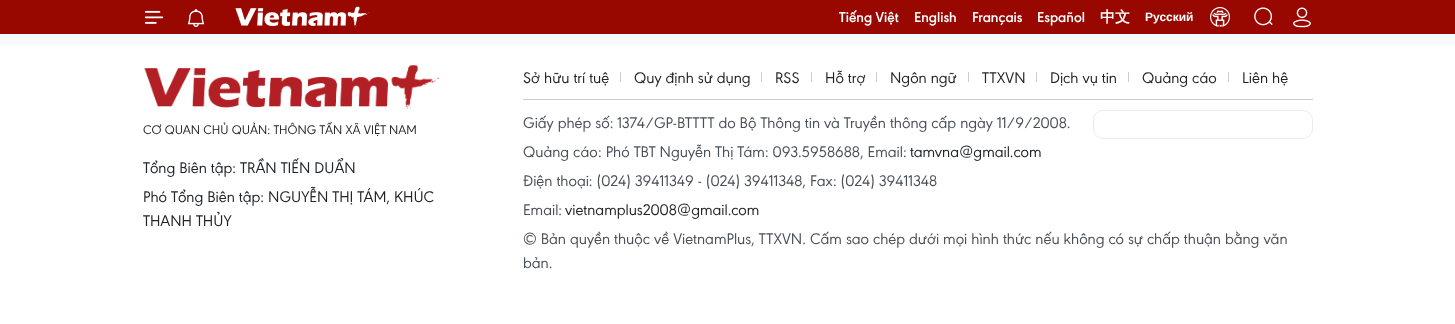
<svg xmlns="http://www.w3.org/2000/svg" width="1455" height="324">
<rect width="100%" height="100%" fill="#fff"/>
<rect width="1455" height="34" fill="#980700"/>
<image x="144" y="10" width="20" height="14" href="media/1.png"/>
<image x="187" y="9" width="18" height="18" href="media/2.png"/>
<image x="235" y="6" width="135" height="22" href="media/3.png"/>
<text x="839" y="22" style="font-family:'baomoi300';font-size:15px;font-weight:600;fill:#fff">Tiếng Việt</text>
<text x="914" y="22" style="font-family:'baomoi300';font-size:15px;font-weight:600;fill:#fff">English</text>
<text x="972" y="22" style="font-family:'baomoi300';font-size:15px;font-weight:600;fill:#fff">Français</text>
<text x="1037" y="22" style="font-family:'baomoi300';font-size:15px;font-weight:600;fill:#fff">Español</text>
<text x="1100" y="22" style="font-family:WenQuanYi Zen Hei;font-size:15px;font-weight:bold;fill:#fff">中文</text>
<text x="1145" y="21" style="font-family:Liberation Sans;font-size:12px;font-weight:bold;fill:#fff">Русский</text>
<image x="1210" y="7" width="20" height="20" href="media/4.png"/>
<image x="1254" y="7" width="19" height="19" href="media/5.png"/>
<image x="1293" y="7" width="18" height="21" href="media/6.png"/>
<rect y="34" width="1455" height="11" fill="#f8f9fa"/>
<image x="144" y="65" width="296" height="44" href="media/7.png"/>
<text x="143" y="134" style="font-family:'baomoi300';font-size:13px;fill:#212529">CƠ QUAN CHỦ QUẢN: THÔNG TẤN XÃ VIỆT NAM</text>
<text x="143" y="173" style="font-family:'baomoi300';font-size:16px;fill:#212529">Tổng Biên tập: TRẦN TIẾN DUẨN</text>
<text x="143" y="202" style="font-family:'baomoi300';font-size:16px;fill:#212529">Phó Tổng Biên tập: NGUYỄN THỊ TÁM, KHÚC</text>
<text x="143" y="226" style="font-family:'baomoi300';font-size:16px;fill:#212529">THANH THỦY</text>
<rect x="523" y="99" width="790" height="1" fill="#ccc"/>
<text x="523" y="83" style="font-family:'baomoi300';font-size:16px;fill:#212529">Sở hữu trí tuệ</text>
<rect x="620" y="72" width="1" height="10" fill="#ccc"/>
<text x="634" y="83" style="font-family:'baomoi300';font-size:16px;fill:#212529">Quy định sử dụng</text>
<rect x="761" y="72" width="1" height="10" fill="#ccc"/>
<text x="775" y="83" style="font-family:'baomoi300';font-size:16px;fill:#212529">RSS</text>
<rect x="811" y="72" width="1" height="10" fill="#ccc"/>
<text x="825" y="83" style="font-family:'baomoi300';font-size:16px;fill:#212529">Hỗ trợ</text>
<rect x="876" y="72" width="1" height="10" fill="#ccc"/>
<text x="890" y="83" style="font-family:'baomoi300';font-size:16px;fill:#212529">Ngôn ngữ</text>
<rect x="968" y="72" width="1" height="10" fill="#ccc"/>
<text x="982" y="83" style="font-family:'baomoi300';font-size:16px;fill:#212529">TTXVN</text>
<rect x="1036" y="72" width="1" height="10" fill="#ccc"/>
<text x="1050" y="83" style="font-family:'baomoi300';font-size:16px;fill:#212529">Dịch vụ tin</text>
<rect x="1128" y="72" width="1" height="10" fill="#ccc"/>
<text x="1142" y="83" style="font-family:'baomoi300';font-size:16px;fill:#212529">Quảng cáo</text>
<rect x="1228" y="72" width="1" height="10" fill="#ccc"/>
<text x="1242" y="83" style="font-family:'baomoi300';font-size:16px;fill:#212529">Liên hệ</text>
<text x="523" y="128" style="font-family:'baomoi300';font-size:16px;fill:#495057">Giấy phép số: 1374/GP-BTTTT do Bộ Thông tin và Truyền thông cấp ngày 11/9/2008.</text>
<rect x="1093.5" y="110.5" width="219" height="28" rx="9.5" fill="none" stroke="#e9ecef"/>
<text x="523" y="157" style="font-family:'baomoi300';font-size:16px;fill:#495057">Quảng cáo: Phó TBT Nguyễn Thị Tám: 093.5958688, Email:</text>
<text x="910" y="157" style="font-family:'baomoi300';font-size:16px;fill:#212529">tamvna@gmail.com</text>
<text x="523" y="186" style="font-family:'baomoi300';font-size:16px;fill:#495057">Điện thoại: (024) 39411349 - (024) 39411348, Fax: (024) 39411348</text>
<text x="523" y="215" style="font-family:'baomoi300';font-size:16px;fill:#495057">Email:</text>
<text x="565" y="215" style="font-family:'baomoi300';font-size:16px;fill:#212529">vietnamplus2008@gmail.com</text>
<text x="523" y="244" style="font-family:'baomoi300';font-size:16px;fill:#495057">© Bản quyền thuộc về VietnamPlus, TTXVN. Cấm sao chép dưới mọi hình thức nếu không có sự chấp thuận bằng văn</text>
<text x="523" y="268" style="font-family:'baomoi300';font-size:16px;fill:#495057">bản.</text>
</svg>
